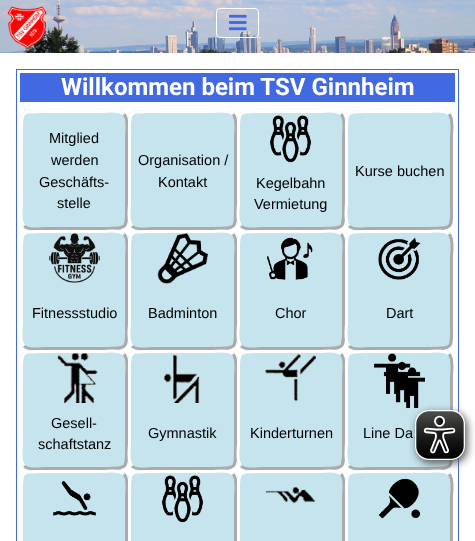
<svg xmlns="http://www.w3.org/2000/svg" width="475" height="541">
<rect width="100%" height="100%" fill="#fff"/>
<image x="0" y="0" width="475" height="53" href="media/1.png"/>
<rect x="216.5" y="8.5" width="42" height="29" rx="3.5" fill="none" stroke="#fff"/>
<image x="229" y="14" width="18" height="17" href="media/2.png"/>
<rect x="16.5" y="69.5" width="442" height="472" fill="none" stroke="#4169e1"/>
<rect x="20" y="73" width="435" height="29" fill="#4169e1"/>
<text x="61" y="95" style="font-family:Roboto;font-size:24px;font-weight:bold;fill:#fff">Willkommen beim TSV Ginnheim</text>
<rect x="20" y="110" width="108" height="120" rx="10" fill="#c6e4ee"/>
<path d="M124 114c5 5 2.5 19 2.5 22.5v67c0 26 2.5 25-23 25h-59c-4 0-15.5 2.5-20.5-2.5" fill="none" stroke="#aaa" stroke-width="3"/>
<path d="M24 226c-5-5-2.5-19-2.5-22.5v-67c0-26-2.5-25 23-25h59c4 0 15.5-2.5 20.5 2.5" fill="none" stroke="#fff" stroke-width="3"/>
<text x="49" y="143" style="font-family:Liberation Sans;font-size:14.5px;fill:#000">Mitglied</text>
<text x="51" y="165" style="font-family:Liberation Sans;font-size:14.5px;fill:#000">werden</text>
<text x="39" y="187" style="font-family:Liberation Sans;font-size:14.5px;fill:#000">Geschäfts-</text>
<text x="57" y="208" style="font-family:Liberation Sans;font-size:14.5px;fill:#000">stelle</text>
<rect x="128" y="110" width="109" height="120" rx="10" fill="#add8e6b3"/>
<path d="M233 114c5 5 2.5 19 2.5 22.5v67c0 26 2.5 25-23.5 25h-59c-4.5 0-16 2.5-21-2.5" fill="none" stroke="#aaa" stroke-width="3"/>
<path d="M132 226c-5-5-2.5-19-2.5-22.5v-67c0-26-2.5-25 23.5-25h59c4.5 0 16-2.5 21 2.5" fill="none" stroke="#fff" stroke-width="3"/>
<text x="138" y="165" style="font-family:Liberation Sans;font-size:14.5px;fill:#000">Organisation /</text>
<text x="158" y="187" style="font-family:Liberation Sans;font-size:14.5px;fill:#000">Kontakt</text>
<rect x="237" y="110" width="108" height="120" rx="10" fill="#add8e6b3"/>
<image x="270" y="115" width="41" height="48" href="media/3.png"/>
<path d="M341 114c5 5 2.5 19 2.5 22.5v67c0 26 2.5 25-23 25h-59c-4 0-15.5 2.5-20.5-2.5" fill="none" stroke="#aaa" stroke-width="3"/>
<rect x="345" y="110" width="108" height="120" rx="10" fill="#add8e6b3"/>
<path d="M449 114c5 5 2.5 19 2.5 22.5v67c0 26 2.5 25-23 25h-59c-4 0-15.5 2.5-20.5-2.5" fill="none" stroke="#aaa" stroke-width="3"/>
<path d="M349 226c-5-5-2.5-19-2.5-22.5v-67c0-26-2.5-25 23-25h59c4 0 15.5-2.5 20.5 2.5" fill="none" stroke="#fff" stroke-width="3"/>
<text x="355" y="176" style="font-family:Liberation Sans;font-size:14.5px;fill:#000">Kurse buchen</text>
<path d="M241 226c-5-5-2.5-19-2.5-22.5v-67c0-26-2.5-25 23-25h59c4 0 15.5-2.5 20.5 2.5" fill="none" stroke="#fff" stroke-width="3"/>
<text x="256" y="188" style="font-family:Liberation Sans;font-size:14.5px;fill:#000">Kegelbahn</text>
<text x="254" y="209" style="font-family:Liberation Sans;font-size:14.5px;fill:#000">Vermietung</text>
<rect x="20" y="230" width="108" height="120" rx="10" fill="#add8e6b3"/>
<image x="49" y="233" width="51" height="50" href="media/4.png"/>
<path d="M124 234c5 5 2.5 19 2.5 22.5v67c0 26 2.5 25-23 25h-59c-4 0-15.5 2.5-20.5-2.5" fill="none" stroke="#aaa" stroke-width="3"/>
<path d="M24 346c-5-5-2.5-19-2.5-22.5v-67c0-26-2.5-25 23-25h59c4 0 15.5-2.5 20.5 2.5" fill="none" stroke="#fff" stroke-width="3"/>
<text x="32" y="318" style="font-family:Liberation Sans;font-size:14.5px;fill:#000">Fitnessstudio</text>
<rect x="128" y="230" width="109" height="120" rx="10" fill="#add8e6b3"/>
<image x="157" y="233" width="51" height="51" href="media/5.png"/>
<path d="M233 234c5 5 2.5 19 2.5 22.5v67c0 26 2.5 25-23.5 25h-59c-4.5 0-16 2.5-21-2.5" fill="none" stroke="#aaa" stroke-width="3"/>
<path d="M132 346c-5-5-2.5-19-2.5-22.5v-67c0-26-2.5-25 23.5-25h59c4.5 0 16-2.5 21 2.5" fill="none" stroke="#fff" stroke-width="3"/>
<text x="148" y="318" style="font-family:Liberation Sans;font-size:14.5px;fill:#000">Badminton</text>
<rect x="237" y="230" width="108" height="120" rx="10" fill="#add8e6b3"/>
<image x="267" y="237" width="46" height="43" href="media/6.png"/>
<path d="M341 234c5 5 2.5 19 2.5 22.5v67c0 26 2.5 25-23 25h-59c-4 0-15.5 2.5-20.5-2.5" fill="none" stroke="#aaa" stroke-width="3"/>
<path d="M241 346c-5-5-2.5-19-2.5-22.5v-67c0-26-2.5-25 23-25h59c4 0 15.5-2.5 20.5 2.5" fill="none" stroke="#fff" stroke-width="3"/>
<text x="275" y="318" style="font-family:Liberation Sans;font-size:14.5px;fill:#000">Chor</text>
<rect x="345" y="230" width="108" height="120" rx="10" fill="#add8e6b3"/>
<image x="378" y="237" width="43" height="43" href="media/7.png"/>
<path d="M449 234c5 5 2.5 19 2.5 22.5v67c0 26 2.5 25-23 25h-59c-4 0-15.5 2.5-20.5-2.5" fill="none" stroke="#aaa" stroke-width="3"/>
<path d="M349 346c-5-5-2.5-19-2.5-22.5v-67c0-26-2.5-25 23-25h59c4 0 15.5-2.5 20.5 2.5" fill="none" stroke="#fff" stroke-width="3"/>
<text x="386" y="318" style="font-family:Liberation Sans;font-size:14.5px;fill:#000">Dart</text>
<rect x="20" y="350" width="108" height="120" rx="10" fill="#add8e6b3"/>
<image x="57" y="353" width="41" height="50" href="media/8.png"/>
<path d="M124 354c5 5 2.5 19 2.5 22.5v67c0 26 2.5 25-23 25h-59c-4 0-15.5 2.5-20.5-2.5" fill="none" stroke="#aaa" stroke-width="3"/>
<path d="M24 466c-5-5-2.5-19-2.5-22.5v-67c0-26-2.5-25 23-25h59c4 0 15.5-2.5 20.5 2.5" fill="none" stroke="#fff" stroke-width="3"/>
<text x="51" y="428" style="font-family:Liberation Sans;font-size:14.5px;fill:#000">Gesell-</text>
<text x="38" y="449" style="font-family:Liberation Sans;font-size:14.5px;fill:#000">schaftstanz</text>
<rect x="128" y="350" width="109" height="120" rx="10" fill="#add8e6b3"/>
<image x="163" y="354" width="37" height="49" href="media/9.png"/>
<path d="M233 354c5 5 2.5 19 2.5 22.5v67c0 26 2.5 25-23.5 25h-59c-4.5 0-16 2.5-21-2.5" fill="none" stroke="#aaa" stroke-width="3"/>
<path d="M132 466c-5-5-2.5-19-2.5-22.5v-67c0-26-2.5-25 23.5-25h59c4.5 0 16-2.5 21 2.5" fill="none" stroke="#fff" stroke-width="3"/>
<text x="148" y="438" style="font-family:Liberation Sans;font-size:14.5px;fill:#000">Gymnastik</text>
<rect x="237" y="350" width="108" height="120" rx="10" fill="#add8e6b3"/>
<image x="265" y="353" width="51" height="49" href="media/10.png"/>
<path d="M341 354c5 5 2.5 19 2.5 22.5v67c0 26 2.5 25-23 25h-59c-4 0-15.5 2.5-20.5-2.5" fill="none" stroke="#aaa" stroke-width="3"/>
<path d="M241 466c-5-5-2.5-19-2.5-22.5v-67c0-26-2.5-25 23-25h59c4 0 15.5-2.5 20.5 2.5" fill="none" stroke="#fff" stroke-width="3"/>
<text x="250" y="438" style="font-family:Liberation Sans;font-size:14.5px;fill:#000">Kinderturnen</text>
<rect x="345" y="350" width="108" height="120" rx="10" fill="#add8e6b3"/>
<image x="374" y="353" width="51" height="56" href="media/11.png"/>
<path d="M449 354c5 5 2.5 19 2.5 22.5v67c0 26 2.5 25-23 25h-59c-4 0-15.5 2.5-20.5-2.5" fill="none" stroke="#aaa" stroke-width="3"/>
<path d="M349 466c-5-5-2.5-19-2.5-22.5v-67c0-26-2.5-25 23-25h59c4 0 15.5-2.5 20.5 2.5" fill="none" stroke="#fff" stroke-width="3"/>
<text x="363" y="438" style="font-family:Liberation Sans;font-size:14.5px;fill:#000">Line Da</text>
<rect x="20" y="470" width="108" height="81" rx="10" fill="#add8e6b3"/>
<image x="53" y="481" width="43" height="35" href="media/12.png"/>
<path d="M124 474c5 5 2.5 19 2.5 22.5v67c0 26 2.5 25-23 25h-59c-4 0-15.5 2.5-20.5-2.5" fill="none" stroke="#aaa" stroke-width="3"/>
<path d="M24 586c-5-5-2.5-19-2.5-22.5v-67c0-26-2.5-25 23-25h59c4 0 15.5-2.5 20.5 2.5" fill="none" stroke="#fff" stroke-width="3"/>
<rect x="128" y="470" width="109" height="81" rx="10" fill="#add8e6b3"/>
<image x="162" y="475" width="41" height="48" href="media/3.png"/>
<path d="M233 474c5 5 2.5 19 2.5 22.5v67c0 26 2.5 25-23.5 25h-59c-4.5 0-16 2.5-21-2.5" fill="none" stroke="#aaa" stroke-width="3"/>
<path d="M132 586c-5-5-2.5-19-2.5-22.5v-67c0-26-2.5-25 23.5-25h59c4.5 0 16-2.5 21 2.5" fill="none" stroke="#fff" stroke-width="3"/>
<rect x="237" y="470" width="108" height="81" rx="10" fill="#add8e6b3"/>
<image x="265" y="486" width="51" height="18" href="media/13.png"/>
<path d="M341 474c5 5 2.5 19 2.5 22.5v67c0 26 2.5 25-23 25h-59c-4 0-15.5 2.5-20.5-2.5" fill="none" stroke="#aaa" stroke-width="3"/>
<path d="M241 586c-5-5-2.5-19-2.5-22.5v-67c0-26-2.5-25 23-25h59c4 0 15.5-2.5 20.5 2.5" fill="none" stroke="#fff" stroke-width="3"/>
<rect x="345" y="470" width="108" height="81" rx="10" fill="#add8e6b3"/>
<image x="379" y="478" width="42" height="41" href="media/14.png"/>
<path d="M449 474c5 5 2.5 19 2.5 22.5v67c0 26 2.5 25-23 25h-59c-4 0-15.5 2.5-20.5-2.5" fill="none" stroke="#aaa" stroke-width="3"/>
<path d="M349 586c-5-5-2.5-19-2.5-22.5v-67c0-26-2.5-25 23-25h59c4 0 15.5-2.5 20.5 2.5" fill="none" stroke="#fff" stroke-width="3"/>
<image x="409" y="405" width="66" height="66" href="media/15.png"/>
</svg>
